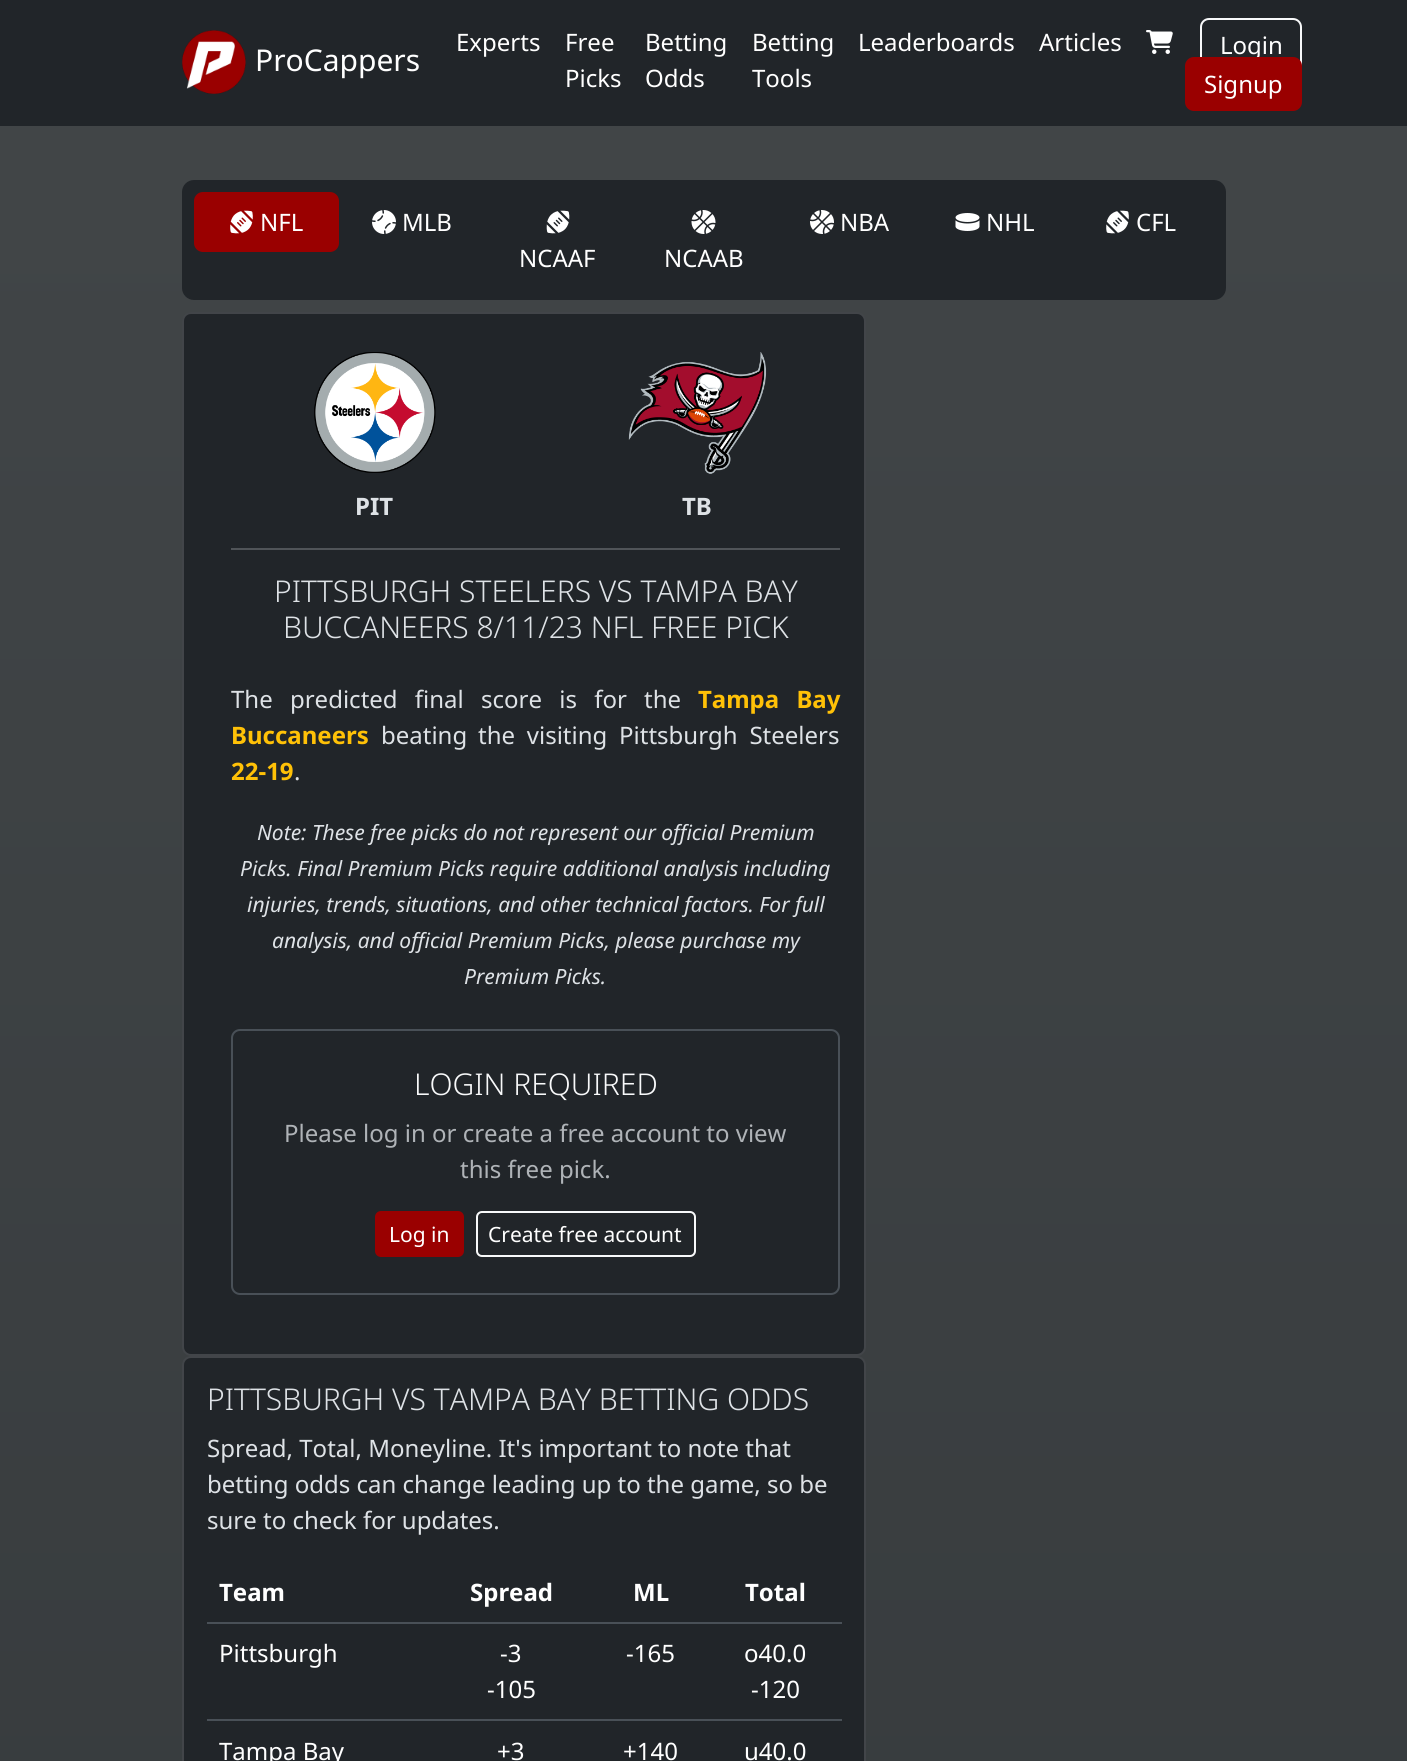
import math
import cairo



def draw_spaced(context, x, y, s, letter, word):
    context.move_to(x, y)
    for ch in s:
        context.show_text(ch)
        context.rel_move_to(letter + word * (ch == ' '), 0)


def rounded_rect(context, x, y, w, h, r):
    context.new_sub_path()
    for i, (u, v) in enumerate([(x + w - r, y + h - r), (x + r, y + h - r), (x + r, y + r), (x + w - r, y + r)]):
        context.arc(u, v, r, i * math.pi / 2, (i + 1) * math.pi / 2)
    context.close_path()


def draw_image(context, path, x, y, w, h):
    context.save()
    context.set_source_surface(cairo.ImageSurface.create_from_png(path), x, y)
    context.rectangle(x, y, w, h)
    context.fill()
    context.restore()


def draw(context):
    context.set_source_rgb(1, 1, 1)
    context.paint()
    gradient = cairo.LinearGradient(703, 0, 704, 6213)
    gradient.add_color_stop_rgba(0, 66 / 255, 70 / 255, 72 / 255, 1)
    gradient.add_color_stop_rgba(1, 32 / 255, 37 / 255, 40 / 255, 1)
    context.set_source(gradient)
    context.rectangle(0, 126, 1407, 1635)
    context.fill()
    context.set_source_rgb(33 / 255, 37 / 255, 41 / 255)
    context.rectangle(0, 0, 1407, 126)
    context.fill()
    draw_image(context, "images/1.png", 182, 30, 64, 64)
    draw_image(context, "images/2.png", 1146, 30, 27, 24)
    rounded_rect(context, 1201, 19, 100, 52, 8)
    context.set_source_rgb(248 / 255, 249 / 255, 250 / 255)
    context.stroke()
    context.set_source_rgb(33 / 255, 37 / 255, 41 / 255)
    rounded_rect(context, 182, 180, 1044, 120, 12)
    context.fill()
    context.set_source_rgb(154 / 255, 0, 0)
    rounded_rect(context, 194, 192, 145, 60, 9)
    context.fill()
    draw_image(context, "images/3.png", 230, 210, 23, 24)
    draw_image(context, "images/4.png", 372, 210, 24, 24)
    draw_image(context, "images/5.png", 810, 210, 24, 24)
    draw_image(context, "images/6.png", 955, 213, 25, 18)
    draw_image(context, "images/7.png", 1106, 210, 23, 24)
    draw_image(context, "images/8.png", 546, 210, 24, 24)
    draw_image(context, "images/9.png", 691, 210, 25, 24)
    context.set_source_rgb(33 / 255, 37 / 255, 41 / 255)
    rounded_rect(context, 182, 312, 684, 1044, 9)
    context.fill()
    rounded_rect(context, 183, 313, 682, 1042, 8)
    context.set_source_rgba(1, 1, 1, 0.15)
    context.stroke()
    draw_image(context, "images/10.png", 314, 352, 122, 121)
    draw_image(context, "images/11.png", 628, 352, 139, 122)
    context.set_source_rgb(80 / 255, 84 / 255, 88 / 255)
    context.rectangle(231, 548, 609, 2)
    context.fill()
    rounded_rect(context, 232, 1030, 607, 264, 8)
    context.set_source_rgb(73 / 255, 80 / 255, 87 / 255)
    context.stroke()
    context.set_source_rgb(154 / 255, 0, 0)
    rounded_rect(context, 376, 1212, 87, 44, 5)
    context.fill_preserve()
    context.stroke()
    rounded_rect(context, 477, 1212, 218, 44, 5)
    context.set_source_rgb(248 / 255, 249 / 255, 250 / 255)
    context.stroke()
    context.set_source_rgb(33 / 255, 37 / 255, 41 / 255)
    rounded_rect(context, 182, 1356, 684, 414, 9)
    context.fill()
    rounded_rect(context, 183, 1357, 682, 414, 8)
    context.set_source_rgba(1, 1, 1, 0.15)
    context.stroke()
    context.set_source_rgb(73 / 255, 80 / 255, 87 / 255)
    context.rectangle(207, 1622, 635, 2)
    context.fill()
    context.rectangle(207, 1719, 635, 2)
    context.fill()
    context.select_font_face("Noto Sans")
    context.set_font_size(30)
    context.set_source_rgb(1, 1, 1)
    context.move_to(255, 71)
    context.show_text("ProCappers")
    context.set_font_size(24)
    context.move_to(456, 51)
    context.show_text("Experts")
    context.move_to(565, 51)
    context.show_text("Free")
    context.move_to(565, 87)
    context.show_text("Picks")
    context.move_to(645, 51)
    context.show_text("Betting")
    context.move_to(645, 87)
    context.show_text("Odds")
    context.move_to(752, 51)
    context.show_text("Betting")
    context.move_to(752, 87)
    context.show_text("Tools")
    context.move_to(858, 51)
    context.show_text("Leaderboards")
    context.move_to(1039, 51)
    context.show_text("Articles")
    context.move_to(1220, 54)
    context.show_text("Login")
    context.set_source_rgb(154 / 255, 0, 0)
    rounded_rect(context, 1186, 58, 115, 52, 8)
    context.fill_preserve()
    context.stroke()
    context.set_source_rgb(1, 1, 1)
    context.move_to(1204, 93)
    context.show_text("Signup")
    context.move_to(260, 231)
    context.show_text("NFL")
    context.move_to(402, 231)
    context.show_text("MLB")
    context.move_to(840, 231)
    context.show_text("NBA")
    context.move_to(986, 231)
    context.show_text("NHL")
    context.move_to(1136, 231)
    context.show_text("CFL")
    context.move_to(519, 267)
    context.show_text("NCAAF")
    context.move_to(664, 267)
    context.show_text("NCAAB")
    context.select_font_face("Noto Sans", cairo.FontSlant.NORMAL, cairo.FontWeight.BOLD)
    context.set_source_rgb(222 / 255, 226 / 255, 230 / 255)
    context.move_to(355, 515)
    context.show_text("PIT")
    context.move_to(682, 515)
    context.show_text("TB")
    context.select_font_face("Noto Sans Light")
    context.set_font_size(30)
    context.move_to(274, 602)
    context.show_text("PITTSBURGH STEELERS VS TAMPA BAY")
    context.move_to(283, 638)
    context.show_text("BUCCANEERS 8/11/23 NFL FREE PICK")
    context.select_font_face("Noto Sans")
    context.set_font_size(24)
    draw_spaced(context, 231, 708, "The predicted final score is for the", 0, 11)
    context.select_font_face("Noto Sans", cairo.FontSlant.NORMAL, cairo.FontWeight.BOLD)
    context.set_source_rgb(1, 193 / 255, 7 / 255)
    draw_spaced(context, 698, 708, "Tampa Bay", 0, 11)
    context.move_to(231, 744)
    context.show_text("Buccaneers")
    context.select_font_face("Noto Sans")
    context.set_source_rgb(222 / 255, 226 / 255, 230 / 255)
    context.move_to(381, 744)
    context.show_text("beating")
    draw_spaced(context, 478, 744, "the visiting Pittsburgh Steelers", 0, 5.5)
    context.select_font_face("Noto Sans", cairo.FontSlant.NORMAL, cairo.FontWeight.BOLD)
    context.set_source_rgb(1, 193 / 255, 7 / 255)
    context.move_to(231, 780)
    context.show_text("22-19")
    context.select_font_face("Noto Sans")
    context.set_source_rgb(222 / 255, 226 / 255, 230 / 255)
    context.move_to(294, 780)
    context.show_text(".")
    context.select_font_face("Noto Sans", cairo.FontSlant.ITALIC)
    context.set_font_size(21)
    context.move_to(257, 840)
    context.show_text("Note: These free picks do not represent our official Premium")
    context.move_to(240, 876)
    context.show_text("Picks. Final Premium Picks require additional analysis including")
    context.move_to(247, 912)
    context.show_text("injuries, trends, situations, and other technical factors. For full")
    context.move_to(272, 948)
    context.show_text("analysis, and official Premium Picks, please purchase my")
    context.move_to(464, 984)
    context.show_text("Premium Picks.")
    context.select_font_face("Noto Sans Light")
    context.set_font_size(30)
    context.set_source_rgb(248 / 255, 249 / 255, 250 / 255)
    context.move_to(414, 1095)
    context.show_text("LOGIN REQUIRED")
    context.select_font_face("Noto Sans")
    context.set_font_size(24)
    context.set_source_rgb(175 / 255, 179 / 255, 183 / 255)
    context.move_to(284, 1142)
    context.show_text("Please log in or create a free account to view")
    context.move_to(460, 1178)
    context.show_text("this free pick.")
    context.set_font_size(21)
    context.set_source_rgb(1, 1, 1)
    context.move_to(389, 1242)
    context.show_text("Log in")
    context.move_to(488, 1242)
    context.show_text("Create free account")
    context.select_font_face("Noto Sans Light")
    context.set_font_size(30)
    context.set_source_rgb(222 / 255, 226 / 255, 230 / 255)
    context.move_to(207, 1410)
    context.show_text("PITTSBURGH VS TAMPA BAY BETTING ODDS")
    context.select_font_face("Noto Sans")
    context.set_font_size(24)
    context.move_to(207, 1457)
    context.show_text("Spread, Total, Moneyline. It's important to note that")
    context.move_to(207, 1493)
    context.show_text("betting odds can change leading up to the game, so be")
    context.move_to(207, 1529)
    context.show_text("sure to check for updates.")
    context.select_font_face("Noto Sans", cairo.FontSlant.NORMAL, cairo.FontWeight.BOLD)
    context.set_source_rgb(1, 1, 1)
    context.move_to(219, 1601)
    context.show_text("Team")
    context.move_to(470, 1601)
    context.show_text("Spread")
    context.move_to(633, 1601)
    context.show_text("ML")
    context.move_to(745, 1601)
    context.show_text("Total")
    context.select_font_face("Noto Sans")
    context.move_to(219, 1662)
    context.show_text("Pittsburgh")
    context.move_to(500, 1662)
    context.show_text("-3")
    context.move_to(487, 1698)
    context.show_text("-105")
    context.move_to(626, 1662)
    context.show_text("-165")
    context.move_to(744, 1662)
    context.show_text("o40.0")
    context.move_to(751, 1698)
    context.show_text("-120")
    context.move_to(219, 1760)
    context.show_text("Tampa Bay")
    context.move_to(497, 1760)
    context.show_text("+3")
    context.move_to(623, 1760)
    context.show_text("+140")
    context.move_to(744, 1760)
    context.show_text("u40.0")


surface = cairo.ImageSurface(cairo.Format.RGB24, 1407, 1761)
context = cairo.Context(surface)
options = cairo.FontOptions()
options.set_hint_metrics(cairo.HintMetrics.OFF)
options.set_hint_style(cairo.HintStyle.NONE)
context.set_font_options(options)
context.set_miter_limit(4)
draw(context)
surface.write_to_png("out.png")
